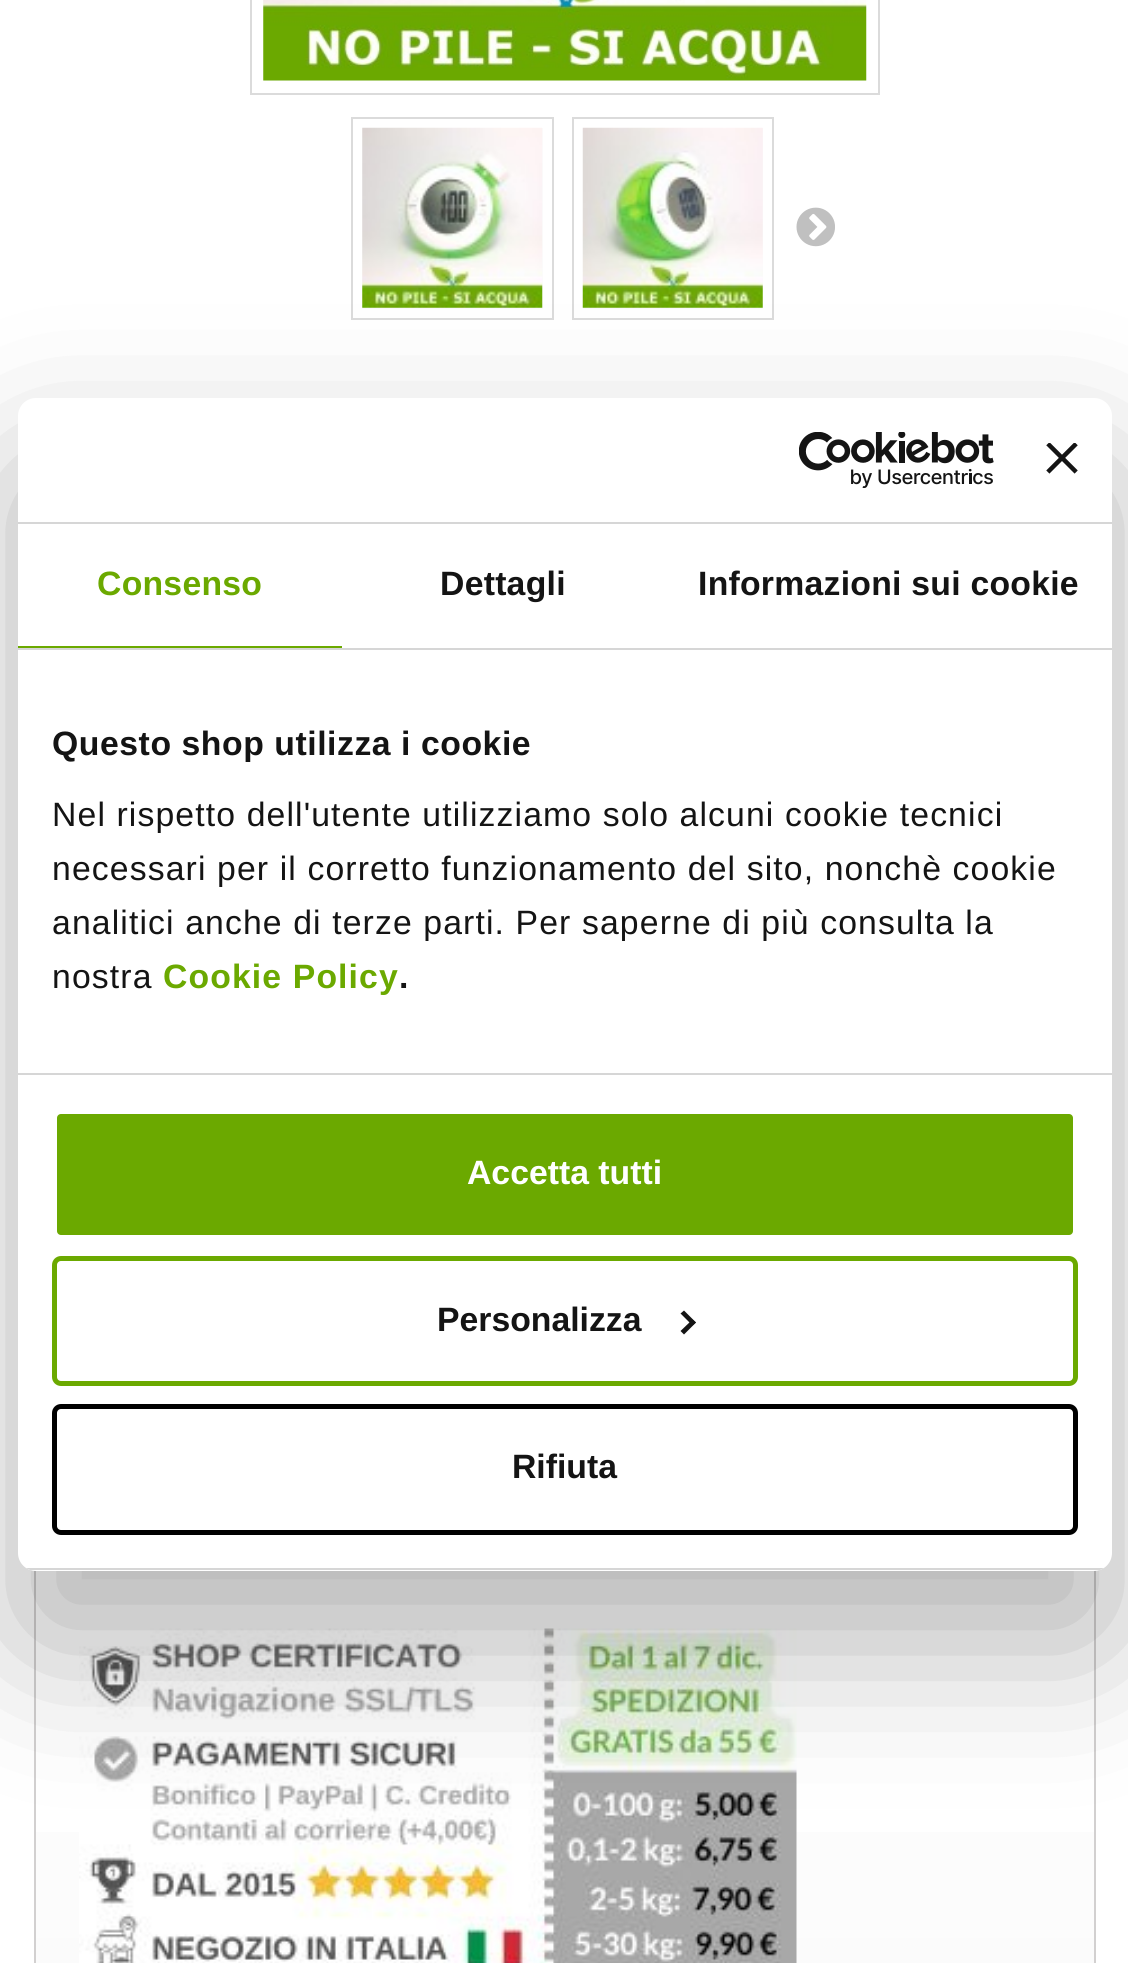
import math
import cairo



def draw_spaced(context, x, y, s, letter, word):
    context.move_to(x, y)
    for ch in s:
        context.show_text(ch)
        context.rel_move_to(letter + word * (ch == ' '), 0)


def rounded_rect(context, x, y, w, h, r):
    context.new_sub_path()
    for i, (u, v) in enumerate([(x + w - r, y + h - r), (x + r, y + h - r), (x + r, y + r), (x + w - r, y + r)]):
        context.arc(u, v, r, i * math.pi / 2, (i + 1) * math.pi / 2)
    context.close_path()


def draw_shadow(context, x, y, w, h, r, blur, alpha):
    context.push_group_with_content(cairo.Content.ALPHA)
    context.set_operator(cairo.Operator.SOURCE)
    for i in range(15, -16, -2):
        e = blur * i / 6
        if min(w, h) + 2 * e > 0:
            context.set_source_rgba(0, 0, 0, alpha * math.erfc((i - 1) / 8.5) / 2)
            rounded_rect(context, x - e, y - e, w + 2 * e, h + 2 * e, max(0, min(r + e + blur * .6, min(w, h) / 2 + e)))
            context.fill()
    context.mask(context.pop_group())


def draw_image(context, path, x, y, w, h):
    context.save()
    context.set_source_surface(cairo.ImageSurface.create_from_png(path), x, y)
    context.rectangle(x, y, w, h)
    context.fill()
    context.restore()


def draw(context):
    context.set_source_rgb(1, 1, 1)
    context.paint()
    context.rectangle(251, -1, 628, 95)
    context.set_source_rgb(219 / 255, 219 / 255, 219 / 255)
    context.stroke()
    context.set_source_rgb(251 / 255, 251 / 255, 251 / 255)
    context.rectangle(263, 0, 603, 81)
    context.fill()
    draw_image(context, "images/1.png", 263, 0, 604, 81)
    context.rectangle(352, 118, 201, 201)
    context.set_source_rgb(219 / 255, 219 / 255, 219 / 255)
    context.stroke()
    context.set_source_rgb(251 / 255, 251 / 255, 251 / 255)
    context.rectangle(362, 128, 181, 181)
    context.fill()
    draw_image(context, "images/2.png", 362, 127, 181, 181)
    context.rectangle(573, 118, 200, 201)
    context.set_source_rgb(219 / 255, 219 / 255, 219 / 255)
    context.stroke()
    context.set_source_rgb(251 / 255, 251 / 255, 251 / 255)
    context.rectangle(583, 128, 180, 181)
    context.fill()
    draw_image(context, "images/3.png", 582, 127, 181, 181)
    draw_image(context, "images/4.png", 796, 207, 39, 40)
    context.set_source_rgb(210 / 255, 208 / 255, 208 / 255)
    context.rectangle(1094, 1570, 2, 393)
    context.fill()
    context.rectangle(34, 1570, 2, 393)
    context.fill()
    gradient = cairo.LinearGradient(565, 1568, 565, 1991)
    gradient.add_color_stop_rgba(0, 1, 1, 1, 1)
    gradient.add_color_stop_rgba(1, 251 / 255, 251 / 255, 251 / 255, 1)
    context.set_source(gradient)
    context.rectangle(36, 1832, 1058, 131)
    context.fill()
    draw_image(context, "images/5.png", 79, 1628, 718, 335)
    context.set_source_rgb(0, 0, 0)
    draw_shadow(context, 18, 470, 1094, 1173, 18, 76.5, 0.3)
    context.set_source_rgb(1, 1, 1)
    rounded_rect(context, 18, 398, 1094, 1173, 18)
    context.fill()
    context.set_source_rgb(214 / 255, 214 / 255, 214 / 255)
    context.rectangle(18, 522, 1094, 2)
    context.fill()
    draw_image(context, "images/6.png", 799, 432, 195, 56)
    draw_image(context, "images/7.png", 1046, 443, 32, 31)
    context.rectangle(18, 648, 1094, 2)
    context.fill()
    context.set_source_rgb(107 / 255, 169 / 255, 0)
    context.rectangle(18, 646, 324, 2)
    context.fill()
    context.set_source_rgb(214 / 255, 214 / 255, 214 / 255)
    context.rectangle(18, 1073, 1094, 2)
    context.fill()
    context.save()
    rounded_rect(context, 18, 398, 1094, 1173, 18)
    context.clip()
    context.rectangle(18, 1568, 1094, 2)
    context.fill()
    context.restore()
    context.set_source_rgb(107 / 255, 169 / 255, 0)
    rounded_rect(context, 54.5, 1111.5, 1021, 126, 6.5)
    context.fill_preserve()
    context.set_source_rgb(1, 1, 1)
    context.set_line_width(5)
    context.stroke()
    rounded_rect(context, 54.5, 1258.5, 1021, 125, 6.5)
    context.set_source_rgb(107 / 255, 169 / 255, 0)
    context.stroke()
    context.set_source_rgb(20 / 255, 20 / 255, 20 / 255)
    context.new_path()
    context.move_to(684, 1310.5)
    context.line_to(696, 1322.5)
    context.line_to(692.5, 1325.5)
    context.line_to(680.5, 1313.5)
    context.close_path()
    context.fill()
    context.new_path()
    context.move_to(692.5, 1319.5)
    context.line_to(696, 1322.5)
    context.line_to(684, 1334.5)
    context.line_to(680.5, 1331)
    context.close_path()
    context.fill()
    rounded_rect(context, 54.5, 1406.5, 1021, 126, 6.5)
    context.set_source_rgb(0, 0, 0)
    context.stroke()
    context.select_font_face("Liberation Sans", cairo.FontSlant.NORMAL, cairo.FontWeight.BOLD)
    context.set_font_size(33.75)
    context.set_source_rgb(107 / 255, 169 / 255, 0)
    draw_spaced(context, 97, 595, "Consenso", 0.25, 0)
    context.set_source_rgb(20 / 255, 20 / 255, 20 / 255)
    draw_spaced(context, 440, 595, "Dettagli", 0.25, 0)
    draw_spaced(context, 698, 595, "Informazioni sui cookie", 0.25, 0)
    draw_spaced(context, 52, 755, "Questo shop utilizza i cookie", 0.55, 0)
    context.select_font_face("Liberation Sans")
    draw_spaced(context, 52, 826, "Nel rispetto dell'utente utilizziamo solo alcuni cookie tecnici", 1.12, 0)
    draw_spaced(context, 52, 880, "necessari per il corretto funzionamento del sito, nonchè cookie", 1.12, 0)
    draw_spaced(context, 52, 934, "analitici anche di terze parti. Per saperne di più consulta la", 1.12, 0)
    draw_spaced(context, 52, 988, "nostra", 1.12, 0)
    context.select_font_face("Liberation Sans", cairo.FontSlant.NORMAL, cairo.FontWeight.BOLD)
    context.set_source_rgb(107 / 255, 169 / 255, 0)
    draw_spaced(context, 163, 988, "Cookie Policy", 1.12, 0)
    context.set_source_rgb(20 / 255, 20 / 255, 20 / 255)
    draw_spaced(context, 399, 988, ".", 1.12, 0)
    context.set_source_rgb(1, 1, 1)
    context.move_to(467, 1184)
    context.show_text("Accetta tutti")
    context.set_source_rgb(20 / 255, 20 / 255, 20 / 255)
    context.move_to(437, 1331)
    context.show_text("Personalizza")
    context.move_to(512, 1478)
    context.show_text("Rifiuta")


surface = cairo.ImageSurface(cairo.Format.RGB24, 1128, 1963)
context = cairo.Context(surface)
options = cairo.FontOptions()
options.set_hint_metrics(cairo.HintMetrics.OFF)
options.set_hint_style(cairo.HintStyle.NONE)
context.set_font_options(options)
context.set_miter_limit(4)
draw(context)
surface.write_to_png("out.png")
